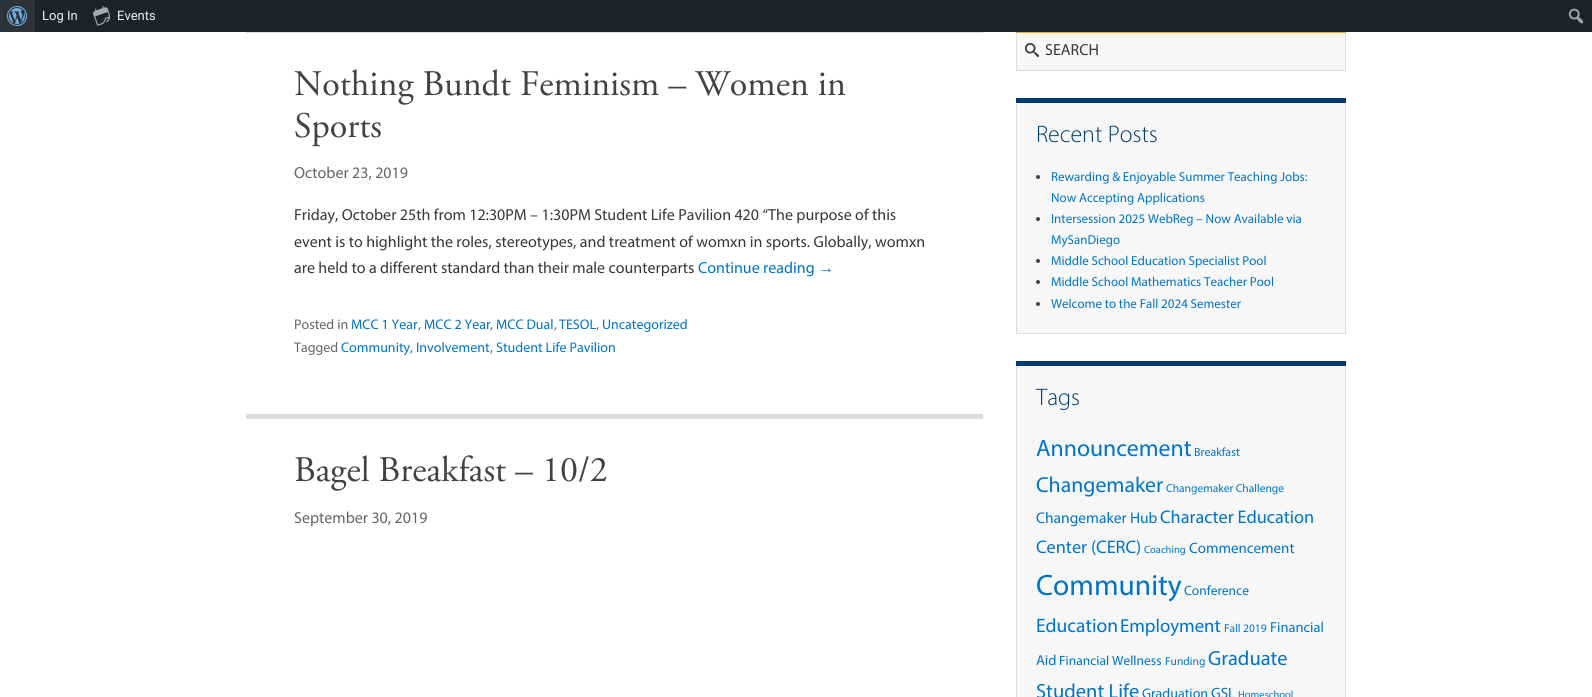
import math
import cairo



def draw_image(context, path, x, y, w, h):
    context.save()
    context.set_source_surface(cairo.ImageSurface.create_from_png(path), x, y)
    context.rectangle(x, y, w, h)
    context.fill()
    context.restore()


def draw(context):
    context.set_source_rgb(1, 1, 1)
    context.paint()
    context.set_source_rgb(247 / 255, 247 / 255, 247 / 255)
    context.rectangle(1017, 33, 328, 37)
    context.fill()
    context.rectangle(1016.5, 29.5, 329, 41)
    context.set_source_rgb(221 / 255, 221 / 255, 221 / 255)
    context.set_line_width(1)
    context.stroke()
    context.set_source_rgb(29 / 255, 35 / 255, 39 / 255)
    context.rectangle(35, 0, 1557, 32)
    context.fill()
    context.set_source_rgb(44 / 255, 51 / 255, 56 / 255)
    context.rectangle(0, 0, 35, 32)
    context.fill()
    draw_image(context, "images/1.png", 7, 6, 20, 20)
    draw_image(context, "images/2.png", 93, 6, 17, 20)
    draw_image(context, "images/3.png", 1568, 8, 16, 16)
    context.set_source_rgb(221 / 255, 221 / 255, 221 / 255)
    context.rectangle(246, 32, 737, 1)
    context.fill()
    context.rectangle(246, 414, 737, 5)
    context.fill()
    context.set_source_rgb(238 / 255, 170 / 255, 43 / 255)
    context.rectangle(1016, 32, 330, 1)
    context.fill()
    draw_image(context, "images/4.png", 1025, 43, 14, 14)
    context.set_source_rgb(247 / 255, 247 / 255, 247 / 255)
    context.rectangle(1017, 103, 328, 230)
    context.fill()
    context.rectangle(1016.5, 99.5, 329, 234)
    context.set_source_rgb(221 / 255, 221 / 255, 221 / 255)
    context.stroke()
    context.set_source_rgb(0, 59 / 255, 112 / 255)
    context.rectangle(1016, 98, 330, 5)
    context.fill()
    context.set_source_rgb(66 / 255, 66 / 255, 66 / 255)
    context.arc(1038, 177, 2, 0, 2 * math.pi)
    context.fill()
    context.arc(1038, 219, 2, 0, 2 * math.pi)
    context.fill()
    context.arc(1038, 261, 2, 0, 2 * math.pi)
    context.fill()
    context.arc(1038, 282, 2, 0, 2 * math.pi)
    context.fill()
    context.arc(1038, 304, 2, 0, 2 * math.pi)
    context.fill()
    context.set_source_rgb(247 / 255, 247 / 255, 247 / 255)
    context.rectangle(1017, 366, 328, 331)
    context.fill()
    context.rectangle(1016.5, 362.5, 329, 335)
    context.set_source_rgb(221 / 255, 221 / 255, 221 / 255)
    context.stroke()
    context.set_source_rgb(0, 59 / 255, 112 / 255)
    context.rectangle(1016, 361, 330, 5)
    context.fill()
    context.select_font_face("Roboto")
    context.set_font_size(13)
    context.set_source_rgb(240 / 255, 240 / 255, 241 / 255)
    context.move_to(42, 20)
    context.show_text("Log In")
    context.move_to(117, 20)
    context.show_text("Events")
    context.select_font_face("Adobe Garamond")
    context.set_font_size(36)
    context.set_source_rgb(66 / 255, 66 / 255, 66 / 255)
    context.move_to(294, 95)
    context.show_text("Nothing Bundt Feminism – Women in")
    context.move_to(294, 137)
    context.show_text("Sports")
    context.select_font_face("Myriad")
    context.set_font_size(16)
    context.set_source_rgb(100 / 255, 100 / 255, 105 / 255)
    context.move_to(294, 178)
    context.show_text("October 23, 2019")
    context.set_source_rgb(55 / 255, 55 / 255, 55 / 255)
    context.move_to(294, 220)
    context.show_text("Friday, October 25th from 12:30PM – 1:30PM Student Life Pavilion 420 “The purpose of this")
    context.move_to(294, 247)
    context.show_text("event is to highlight the roles, stereotypes, and treatment of womxn in sports. Globally, womxn")
    context.move_to(294, 273)
    context.show_text("are held to a different standard than their male counterparts")
    context.set_source_rgb(0, 116 / 255, 200 / 255)
    context.move_to(698, 273)
    context.show_text("Continue reading")
    context.select_font_face("Liberation Sans")
    context.move_to(818, 273)
    context.show_text("→")
    context.select_font_face("Myriad")
    context.set_font_size(14)
    context.set_source_rgb(100 / 255, 100 / 255, 105 / 255)
    context.move_to(294, 329)
    context.show_text("Posted in")
    context.set_source_rgb(0, 116 / 255, 200 / 255)
    context.move_to(351, 329)
    context.show_text("MCC 1 Year")
    context.set_source_rgb(100 / 255, 100 / 255, 105 / 255)
    context.move_to(418, 329)
    context.show_text(",")
    context.set_source_rgb(0, 116 / 255, 200 / 255)
    context.move_to(424, 329)
    context.show_text("MCC 2 Year")
    context.set_source_rgb(100 / 255, 100 / 255, 105 / 255)
    context.move_to(490, 329)
    context.show_text(",")
    context.set_source_rgb(0, 116 / 255, 200 / 255)
    context.move_to(496, 329)
    context.show_text("MCC Dual")
    context.set_source_rgb(100 / 255, 100 / 255, 105 / 255)
    context.move_to(554, 329)
    context.show_text(",")
    context.set_source_rgb(0, 116 / 255, 200 / 255)
    context.move_to(559, 329)
    context.show_text("TESOL")
    context.set_source_rgb(100 / 255, 100 / 255, 105 / 255)
    context.move_to(596, 329)
    context.show_text(",")
    context.set_source_rgb(0, 116 / 255, 200 / 255)
    context.move_to(602, 329)
    context.show_text("Uncategorized")
    context.set_source_rgb(100 / 255, 100 / 255, 105 / 255)
    context.move_to(294, 352)
    context.show_text("Tagged")
    context.set_source_rgb(0, 116 / 255, 200 / 255)
    context.move_to(341, 352)
    context.show_text("Community")
    context.set_source_rgb(100 / 255, 100 / 255, 105 / 255)
    context.move_to(410, 352)
    context.show_text(",")
    context.set_source_rgb(0, 116 / 255, 200 / 255)
    context.move_to(416, 352)
    context.show_text("Involvement")
    context.set_source_rgb(100 / 255, 100 / 255, 105 / 255)
    context.move_to(490, 352)
    context.show_text(",")
    context.set_source_rgb(0, 116 / 255, 200 / 255)
    context.move_to(496, 352)
    context.show_text("Student Life Pavilion")
    context.select_font_face("Adobe Garamond")
    context.set_font_size(36)
    context.set_source_rgb(66 / 255, 66 / 255, 66 / 255)
    context.move_to(294, 481)
    context.show_text("Bagel Breakfast – 10/2")
    context.select_font_face("Myriad")
    context.set_font_size(16)
    context.set_source_rgb(100 / 255, 100 / 255, 105 / 255)
    context.move_to(294, 523)
    context.show_text("September 30, 2019")
    context.set_source_rgb(55 / 255, 55 / 255, 55 / 255)
    context.move_to(1045, 55)
    context.show_text("SEARCH")
    context.select_font_face("Myriad Light")
    context.set_font_size(24)
    context.set_source_rgb(0, 59 / 255, 112 / 255)
    context.move_to(1036, 142)
    context.show_text("Recent Posts")
    context.select_font_face("Myriad")
    context.set_font_size(13)
    context.set_source_rgb(0, 116 / 255, 200 / 255)
    context.move_to(1051, 181)
    context.show_text("Rewarding & Enjoyable Summer Teaching Jobs:")
    context.move_to(1051, 202)
    context.show_text("Now Accepting Applications")
    context.move_to(1051, 223)
    context.show_text("Intersession 2025 WebReg – Now Available via")
    context.move_to(1051, 244)
    context.show_text("MySanDiego")
    context.move_to(1051, 265)
    context.show_text("Middle School Education Specialist Pool")
    context.move_to(1051, 286)
    context.show_text("Middle School Mathematics Teacher Pool")
    context.move_to(1051, 308)
    context.show_text("Welcome to the Fall 2024 Semester")
    context.select_font_face("Myriad Light")
    context.set_font_size(24)
    context.set_source_rgb(0, 59 / 255, 112 / 255)
    context.move_to(1036, 405)
    context.show_text("Tags")
    context.select_font_face("Myriad")
    context.set_font_size(23.75)
    context.set_source_rgb(0, 116 / 255, 200 / 255)
    context.move_to(1036, 456)
    context.show_text("Announcement")
    context.set_font_size(12)
    context.move_to(1194, 456)
    context.show_text("Breakfast")
    context.set_font_size(21.75)
    context.move_to(1036, 492)
    context.show_text("Changemaker")
    context.set_font_size(11.5)
    context.move_to(1166, 492)
    context.show_text("Changemaker Challenge")
    context.set_font_size(15.5)
    context.move_to(1036, 523)
    context.show_text("Changemaker Hub")
    context.set_font_size(18.25)
    context.move_to(1160, 523)
    context.show_text("Character Education")
    context.move_to(1036, 553)
    context.show_text("Center (CERC)")
    context.set_font_size(10.5)
    context.move_to(1144, 553)
    context.show_text("Coaching")
    context.set_font_size(15)
    context.move_to(1189, 553)
    context.show_text("Commencement")
    context.set_font_size(29.5)
    context.move_to(1036, 595)
    context.show_text("Community")
    context.set_font_size(13.5)
    context.move_to(1184, 595)
    context.show_text("Conference")
    context.set_font_size(19.5)
    context.move_to(1036, 632)
    context.show_text("Education")
    context.set_font_size(18.75)
    context.move_to(1120, 632)
    context.show_text("Employment")
    context.set_font_size(11.5)
    context.move_to(1224, 632)
    context.show_text("Fall 2019")
    context.set_font_size(14.5)
    context.move_to(1270, 632)
    context.show_text("Financial")
    context.move_to(1036, 665)
    context.show_text("Aid")
    context.set_font_size(13.5)
    context.move_to(1059, 665)
    context.show_text("Financial Wellness")
    context.set_font_size(11.5)
    context.move_to(1165, 665)
    context.show_text("Funding")
    context.set_font_size(20.5)
    context.move_to(1208, 665)
    context.show_text("Graduate")
    context.move_to(1036, 698)
    context.show_text("Student Life")
    context.set_font_size(14)
    context.move_to(1142, 698)
    context.show_text("Graduation")
    context.set_font_size(15)
    context.move_to(1211, 698)
    context.show_text("GSL")
    context.set_font_size(10.5)
    context.move_to(1238, 698)
    context.show_text("Homeschool")


surface = cairo.ImageSurface(cairo.Format.RGB24, 1592, 697)
context = cairo.Context(surface)
options = cairo.FontOptions()
options.set_hint_metrics(cairo.HintMetrics.OFF)
options.set_hint_style(cairo.HintStyle.NONE)
context.set_font_options(options)
context.set_miter_limit(4)
draw(context)
surface.write_to_png("out.png")
